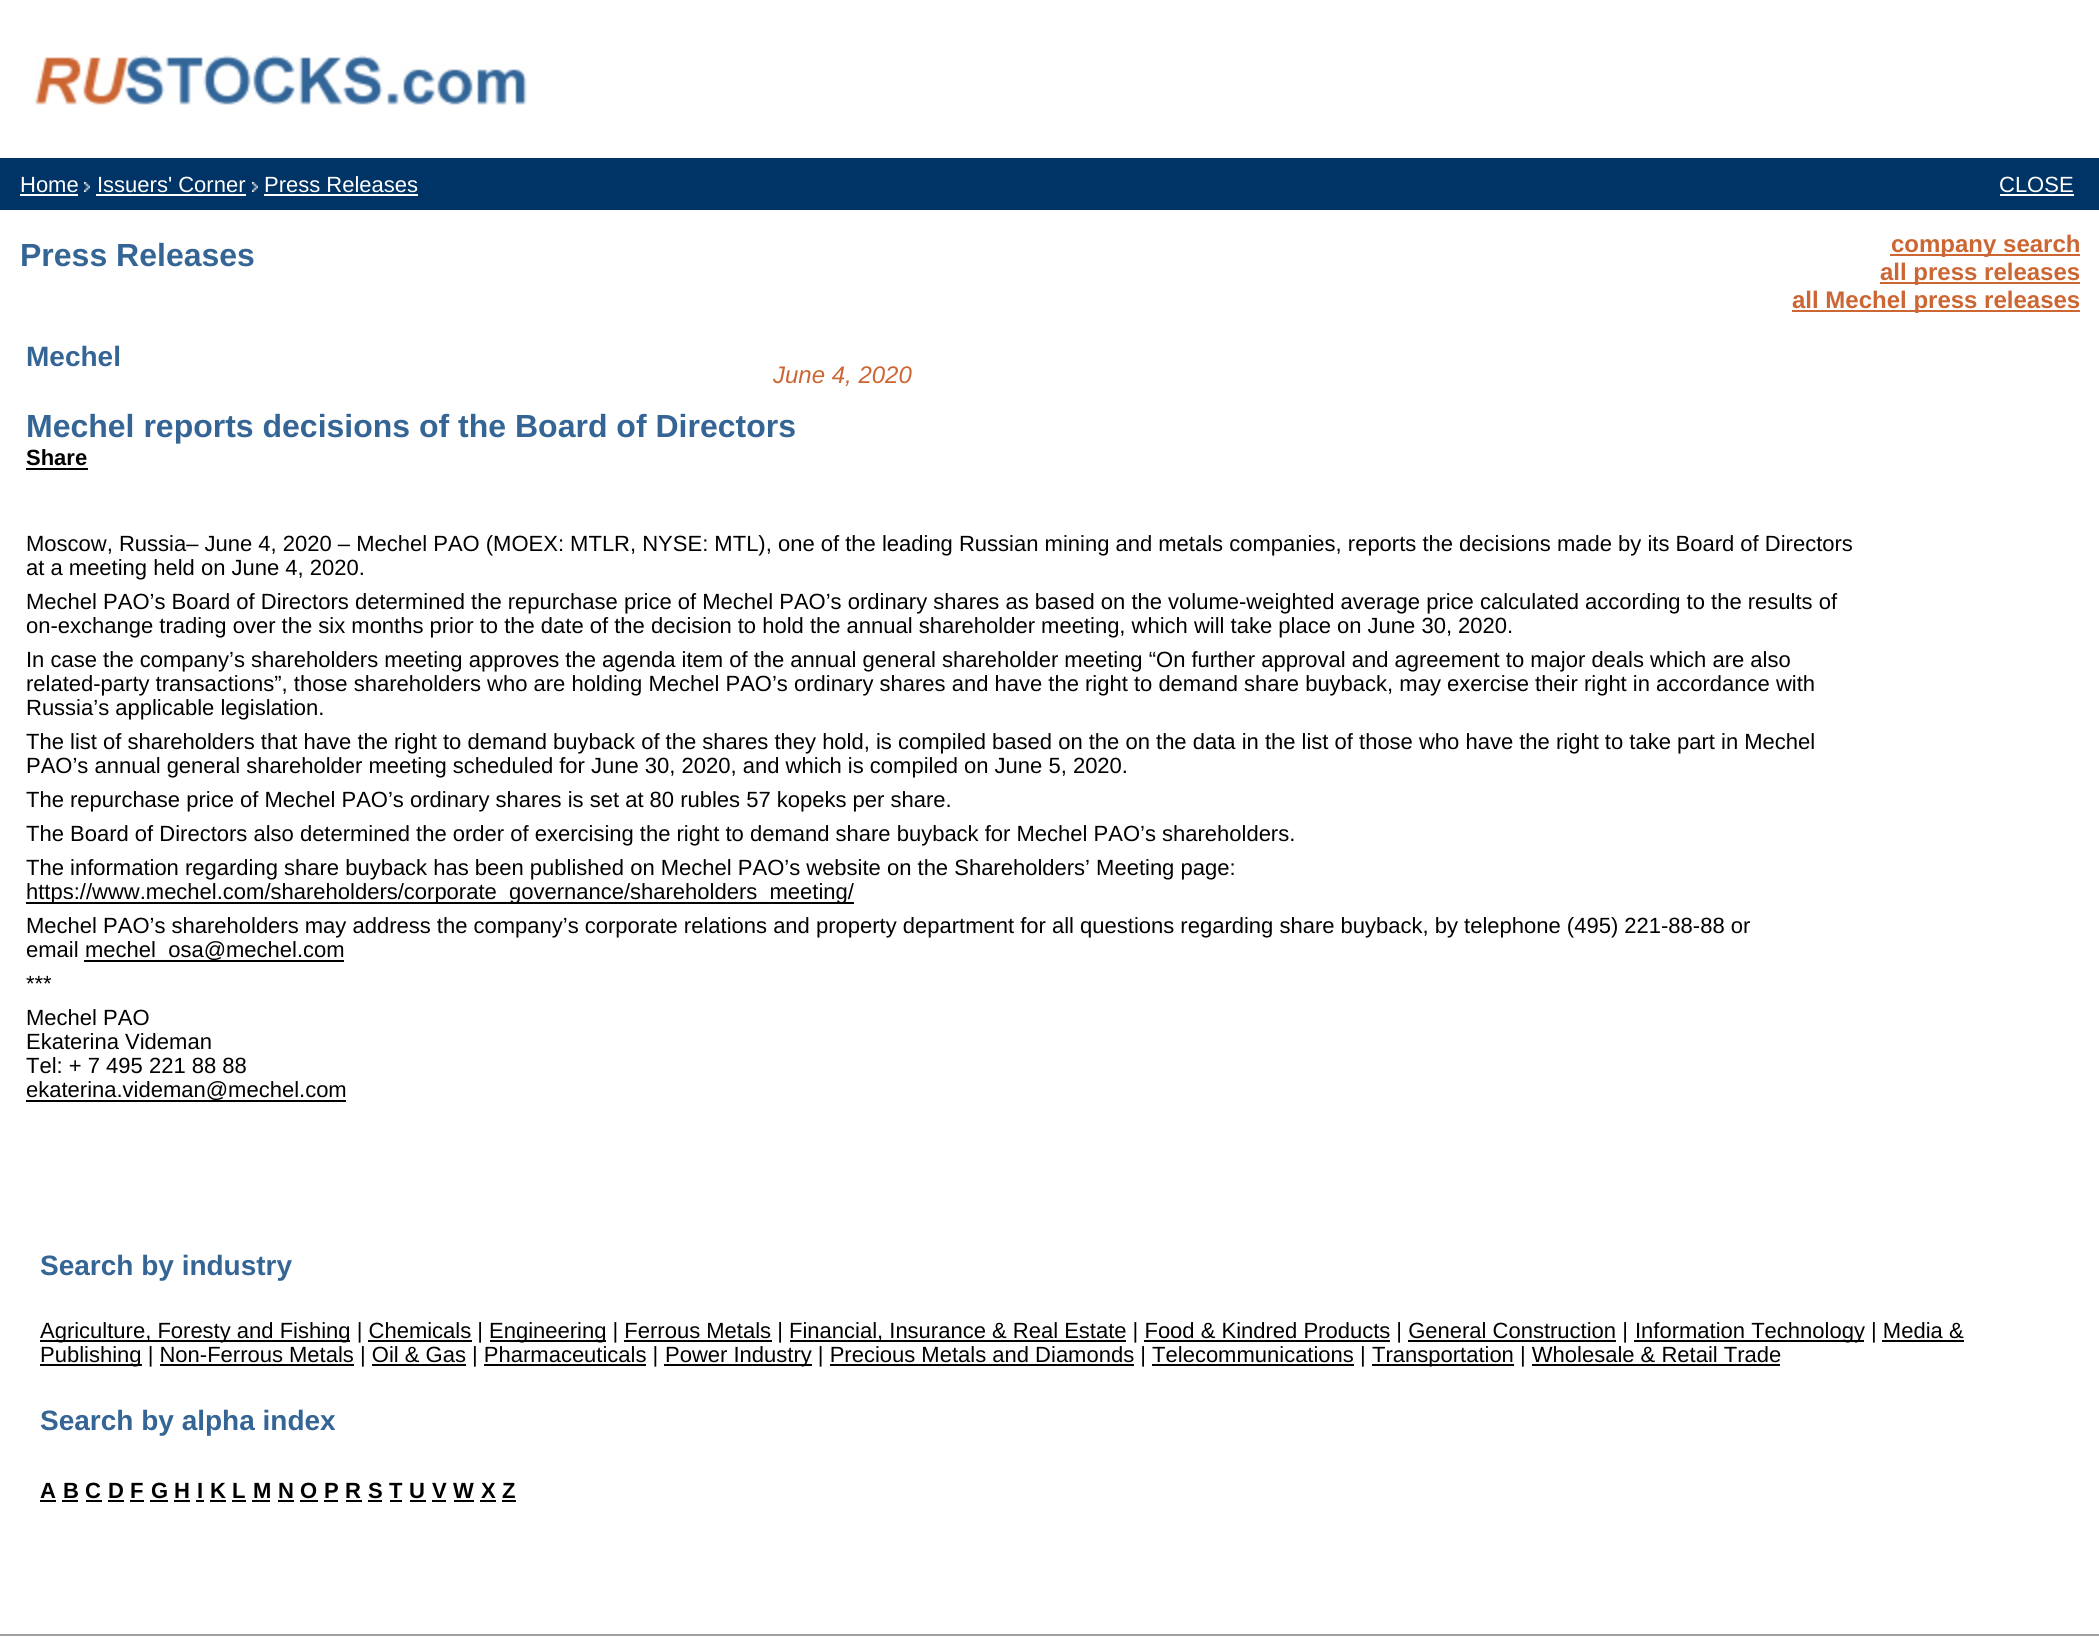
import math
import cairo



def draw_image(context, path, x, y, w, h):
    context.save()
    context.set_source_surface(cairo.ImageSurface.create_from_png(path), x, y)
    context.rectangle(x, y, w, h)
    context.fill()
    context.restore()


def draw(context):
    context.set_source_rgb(1, 1, 1)
    context.paint()
    draw_image(context, "images/1.png", 35, 55, 492, 50)
    context.set_source_rgb(0, 51 / 255, 102 / 255)
    context.rectangle(0, 158, 2099, 52)
    context.fill()
    context.set_source_rgb(1, 1, 1)
    context.rectangle(20, 194, 58, 2)
    context.fill()
    draw_image(context, "images/2.png", 84, 182, 6, 10)
    context.rectangle(96, 194, 150, 2)
    context.fill()
    draw_image(context, "images/2.png", 252, 182, 6, 10)
    context.rectangle(264, 194, 154, 2)
    context.fill()
    context.rectangle(2000, 194, 74, 2)
    context.fill()
    context.set_source_rgb(204 / 255, 102 / 255, 51 / 255)
    context.rectangle(1890, 254, 190, 2)
    context.fill()
    context.rectangle(1880, 282, 200, 2)
    context.fill()
    context.rectangle(1792, 310, 288, 2)
    context.fill()
    context.set_source_rgb(0, 0, 0)
    context.rectangle(26, 468, 62, 2)
    context.fill()
    context.rectangle(26, 902, 828, 2)
    context.fill()
    context.rectangle(84, 960, 260, 2)
    context.fill()
    context.rectangle(26, 1100, 320, 2)
    context.fill()
    context.rectangle(40, 1340, 310, 2)
    context.fill()
    context.rectangle(490, 1340, 116, 2)
    context.fill()
    context.rectangle(790, 1340, 336, 2)
    context.fill()
    context.rectangle(1634, 1340, 230, 2)
    context.fill()
    context.rectangle(368, 1340, 104, 2)
    context.fill()
    context.rectangle(624, 1340, 148, 2)
    context.fill()
    context.rectangle(1144, 1340, 246, 2)
    context.fill()
    context.rectangle(1408, 1340, 208, 2)
    context.fill()
    context.rectangle(1882, 1340, 82, 2)
    context.fill()
    context.rectangle(40, 1364, 102, 2)
    context.fill()
    context.rectangle(664, 1364, 148, 2)
    context.fill()
    context.rectangle(1372, 1364, 142, 2)
    context.fill()
    context.rectangle(160, 1364, 194, 2)
    context.fill()
    context.rectangle(372, 1364, 94, 2)
    context.fill()
    context.rectangle(484, 1364, 162, 2)
    context.fill()
    context.rectangle(830, 1364, 304, 2)
    context.fill()
    context.rectangle(1152, 1364, 202, 2)
    context.fill()
    context.rectangle(1532, 1364, 248, 2)
    context.fill()
    context.rectangle(40, 1500, 16, 2)
    context.fill()
    context.rectangle(62, 1500, 16, 2)
    context.fill()
    context.rectangle(86, 1500, 16, 2)
    context.fill()
    context.rectangle(108, 1500, 16, 2)
    context.fill()
    context.rectangle(130, 1500, 14, 2)
    context.fill()
    context.rectangle(150, 1500, 18, 2)
    context.fill()
    context.rectangle(174, 1500, 16, 2)
    context.fill()
    context.rectangle(196, 1500, 8, 2)
    context.fill()
    context.rectangle(210, 1500, 16, 2)
    context.fill()
    context.rectangle(232, 1500, 14, 2)
    context.fill()
    context.rectangle(252, 1500, 18, 2)
    context.fill()
    context.rectangle(278, 1500, 16, 2)
    context.fill()
    context.rectangle(300, 1500, 18, 2)
    context.fill()
    context.rectangle(324, 1500, 14, 2)
    context.fill()
    context.rectangle(346, 1500, 16, 2)
    context.fill()
    context.rectangle(368, 1500, 14, 2)
    context.fill()
    context.rectangle(390, 1500, 12, 2)
    context.fill()
    context.rectangle(410, 1500, 16, 2)
    context.fill()
    context.rectangle(432, 1500, 14, 2)
    context.fill()
    context.rectangle(454, 1500, 20, 2)
    context.fill()
    context.rectangle(480, 1500, 16, 2)
    context.fill()
    context.rectangle(502, 1500, 14, 2)
    context.fill()
    context.set_source_rgb(159 / 255, 159 / 255, 159 / 255)
    context.rectangle(0, 1634, 2099, 2)
    context.fill()
    context.select_font_face("Liberation Sans")
    context.set_font_size(22)
    context.set_source_rgb(1, 1, 1)
    context.move_to(20, 192)
    context.show_text("Home")
    context.move_to(97, 192)
    context.show_text("Issuers' Corner")
    context.move_to(264, 192)
    context.show_text("Press Releases")
    context.move_to(1999, 192)
    context.show_text("CLOSE")
    context.select_font_face("Liberation Sans", cairo.FontSlant.NORMAL, cairo.FontWeight.BOLD)
    context.set_font_size(32)
    context.set_source_rgb(53 / 255, 101 / 255, 149 / 255)
    context.move_to(20, 266)
    context.show_text("Press Releases")
    context.set_font_size(24)
    context.set_source_rgb(204 / 255, 102 / 255, 51 / 255)
    context.move_to(1891, 252)
    context.show_text("company search")
    context.move_to(1880, 280)
    context.show_text("all press releases")
    context.move_to(1792, 308)
    context.show_text("all Mechel press releases")
    context.set_font_size(28)
    context.set_source_rgb(53 / 255, 101 / 255, 149 / 255)
    context.move_to(26, 366)
    context.show_text("Mechel")
    context.select_font_face("Liberation Sans", cairo.FontSlant.ITALIC)
    context.set_font_size(24)
    context.set_source_rgb(204 / 255, 102 / 255, 51 / 255)
    context.move_to(773, 383)
    context.show_text("June 4, 2020")
    context.select_font_face("Liberation Sans", cairo.FontSlant.NORMAL, cairo.FontWeight.BOLD)
    context.set_font_size(32)
    context.set_source_rgb(53 / 255, 101 / 255, 149 / 255)
    context.move_to(26, 437)
    context.show_text("Mechel reports decisions of the Board of Directors")
    context.set_font_size(22)
    context.set_source_rgb(0, 0, 0)
    context.move_to(26, 465)
    context.show_text("Share")
    context.select_font_face("Liberation Sans")
    context.move_to(26, 551)
    context.show_text("Moscow, Russia– June 4, 2020 – Mechel PAO (MOEX: MTLR, NYSE: MTL), one of the leading Russian mining and metals companies, reports the decisions made by its Board of Directors")
    context.move_to(26, 575)
    context.show_text("at a meeting held on June 4, 2020.")
    context.move_to(26, 609)
    context.show_text("Mechel PAO’s Board of Directors determined the repurchase price of Mechel PAO’s ordinary shares as based on the volume-weighted average price calculated according to the results of")
    context.move_to(26, 633)
    context.show_text("on-exchange trading over the six months prior to the date of the decision to hold the annual shareholder meeting, which will take place on June 30, 2020.")
    context.move_to(26, 667)
    context.show_text("In case the company’s shareholders meeting approves the agenda item of the annual general shareholder meeting “On further approval and agreement to major deals which are also")
    context.move_to(26, 691)
    context.show_text("related-party transactions”, those shareholders who are holding Mechel PAO’s ordinary shares and have the right to demand share buyback, may exercise their right in accordance with")
    context.move_to(26, 715)
    context.show_text("Russia’s applicable legislation.")
    context.move_to(26, 749)
    context.show_text("The list of shareholders that have the right to demand buyback of the shares they hold, is compiled based on the on the data in the list of those who have the right to take part in Mechel")
    context.move_to(26, 773)
    context.show_text("PAO’s annual general shareholder meeting scheduled for June 30, 2020, and which is compiled on June 5, 2020.")
    context.move_to(26, 807)
    context.show_text("The repurchase price of Mechel PAO’s ordinary shares is set at 80 rubles 57 kopeks per share.")
    context.move_to(26, 841)
    context.show_text("The Board of Directors also determined the order of exercising the right to demand share buyback for Mechel PAO’s shareholders.")
    context.move_to(26, 875)
    context.show_text("The information regarding share buyback has been published on Mechel PAO’s website on the Shareholders’ Meeting page:")
    context.move_to(26, 899)
    context.show_text("https://www.mechel.com/shareholders/corporate_governance/shareholders_meeting/")
    context.move_to(26, 933)
    context.show_text("Mechel PAO’s shareholders may address the company’s corporate relations and property department for all questions regarding share buyback, by telephone (495) 221-88-88 or")
    context.move_to(26, 957)
    context.show_text("email")
    context.move_to(85, 957)
    context.show_text("mechel_osa@mechel.com")
    context.move_to(26, 991)
    context.show_text("***")
    context.move_to(26, 1025)
    context.show_text("Mechel PAO")
    context.move_to(26, 1049)
    context.show_text("Ekaterina Videman")
    context.move_to(26, 1073)
    context.show_text("Tel: + 7 495 221 88 88")
    context.move_to(26, 1097)
    context.show_text("ekaterina.videman@mechel.com")
    context.select_font_face("Liberation Sans", cairo.FontSlant.NORMAL, cairo.FontWeight.BOLD)
    context.set_font_size(28)
    context.set_source_rgb(53 / 255, 101 / 255, 149 / 255)
    context.move_to(40, 1275)
    context.show_text("Search by industry")
    context.select_font_face("Liberation Sans")
    context.set_font_size(22)
    context.set_source_rgb(0, 0, 0)
    context.move_to(40, 1338)
    context.show_text("Agriculture, Foresty and Fishing | Chemicals |")
    context.move_to(489, 1338)
    context.show_text("Engineering | Ferrous Metals |")
    context.move_to(789, 1338)
    context.show_text("Financial, Insurance & Real Estate | Food & Kindred Products | General Construction |")
    context.move_to(1635, 1338)
    context.show_text("Information Technology | Media &")
    context.move_to(40, 1362)
    context.show_text("Publishing | Non-Ferrous Metals | Oil & Gas | Pharmaceuticals |")
    context.move_to(665, 1362)
    context.show_text("Power Industry | Precious Metals and Diamonds | Telecommunications |")
    context.move_to(1372, 1362)
    context.show_text("Transportation | Wholesale & Retail Trade")
    context.select_font_face("Liberation Sans", cairo.FontSlant.NORMAL, cairo.FontWeight.BOLD)
    context.set_font_size(28)
    context.set_source_rgb(53 / 255, 101 / 255, 149 / 255)
    context.move_to(40, 1430)
    context.show_text("Search by alpha index")
    context.set_font_size(22)
    context.set_source_rgb(0, 0, 0)
    context.move_to(40, 1498)
    context.show_text("A")
    context.move_to(63, 1498)
    context.show_text("B")
    context.move_to(85, 1498)
    context.show_text("C")
    context.move_to(108, 1498)
    context.show_text("D")
    context.move_to(130, 1498)
    context.show_text("F")
    context.move_to(151, 1498)
    context.show_text("G")
    context.move_to(174, 1498)
    context.show_text("H")
    context.move_to(197, 1498)
    context.show_text("I")
    context.move_to(210, 1498)
    context.show_text("K")
    context.move_to(232, 1498)
    context.show_text("L")
    context.move_to(253, 1498)
    context.show_text("M")
    context.move_to(278, 1498)
    context.show_text("N")
    context.move_to(300, 1498)
    context.show_text("O")
    context.move_to(324, 1498)
    context.show_text("P")
    context.move_to(345, 1498)
    context.show_text("R")
    context.move_to(368, 1498)
    context.show_text("S")
    context.move_to(389, 1498)
    context.show_text("T")
    context.move_to(409, 1498)
    context.show_text("U")
    context.move_to(432, 1498)
    context.show_text("V")
    context.move_to(453, 1498)
    context.show_text("W")
    context.move_to(481, 1498)
    context.show_text("X")
    context.move_to(502, 1498)
    context.show_text("Z")


surface = cairo.ImageSurface(cairo.Format.RGB24, 2099, 1637)
context = cairo.Context(surface)
options = cairo.FontOptions()
options.set_hint_metrics(cairo.HintMetrics.OFF)
options.set_hint_style(cairo.HintStyle.NONE)
context.set_font_options(options)
context.set_miter_limit(4)
draw(context)
surface.write_to_png("out.png")
